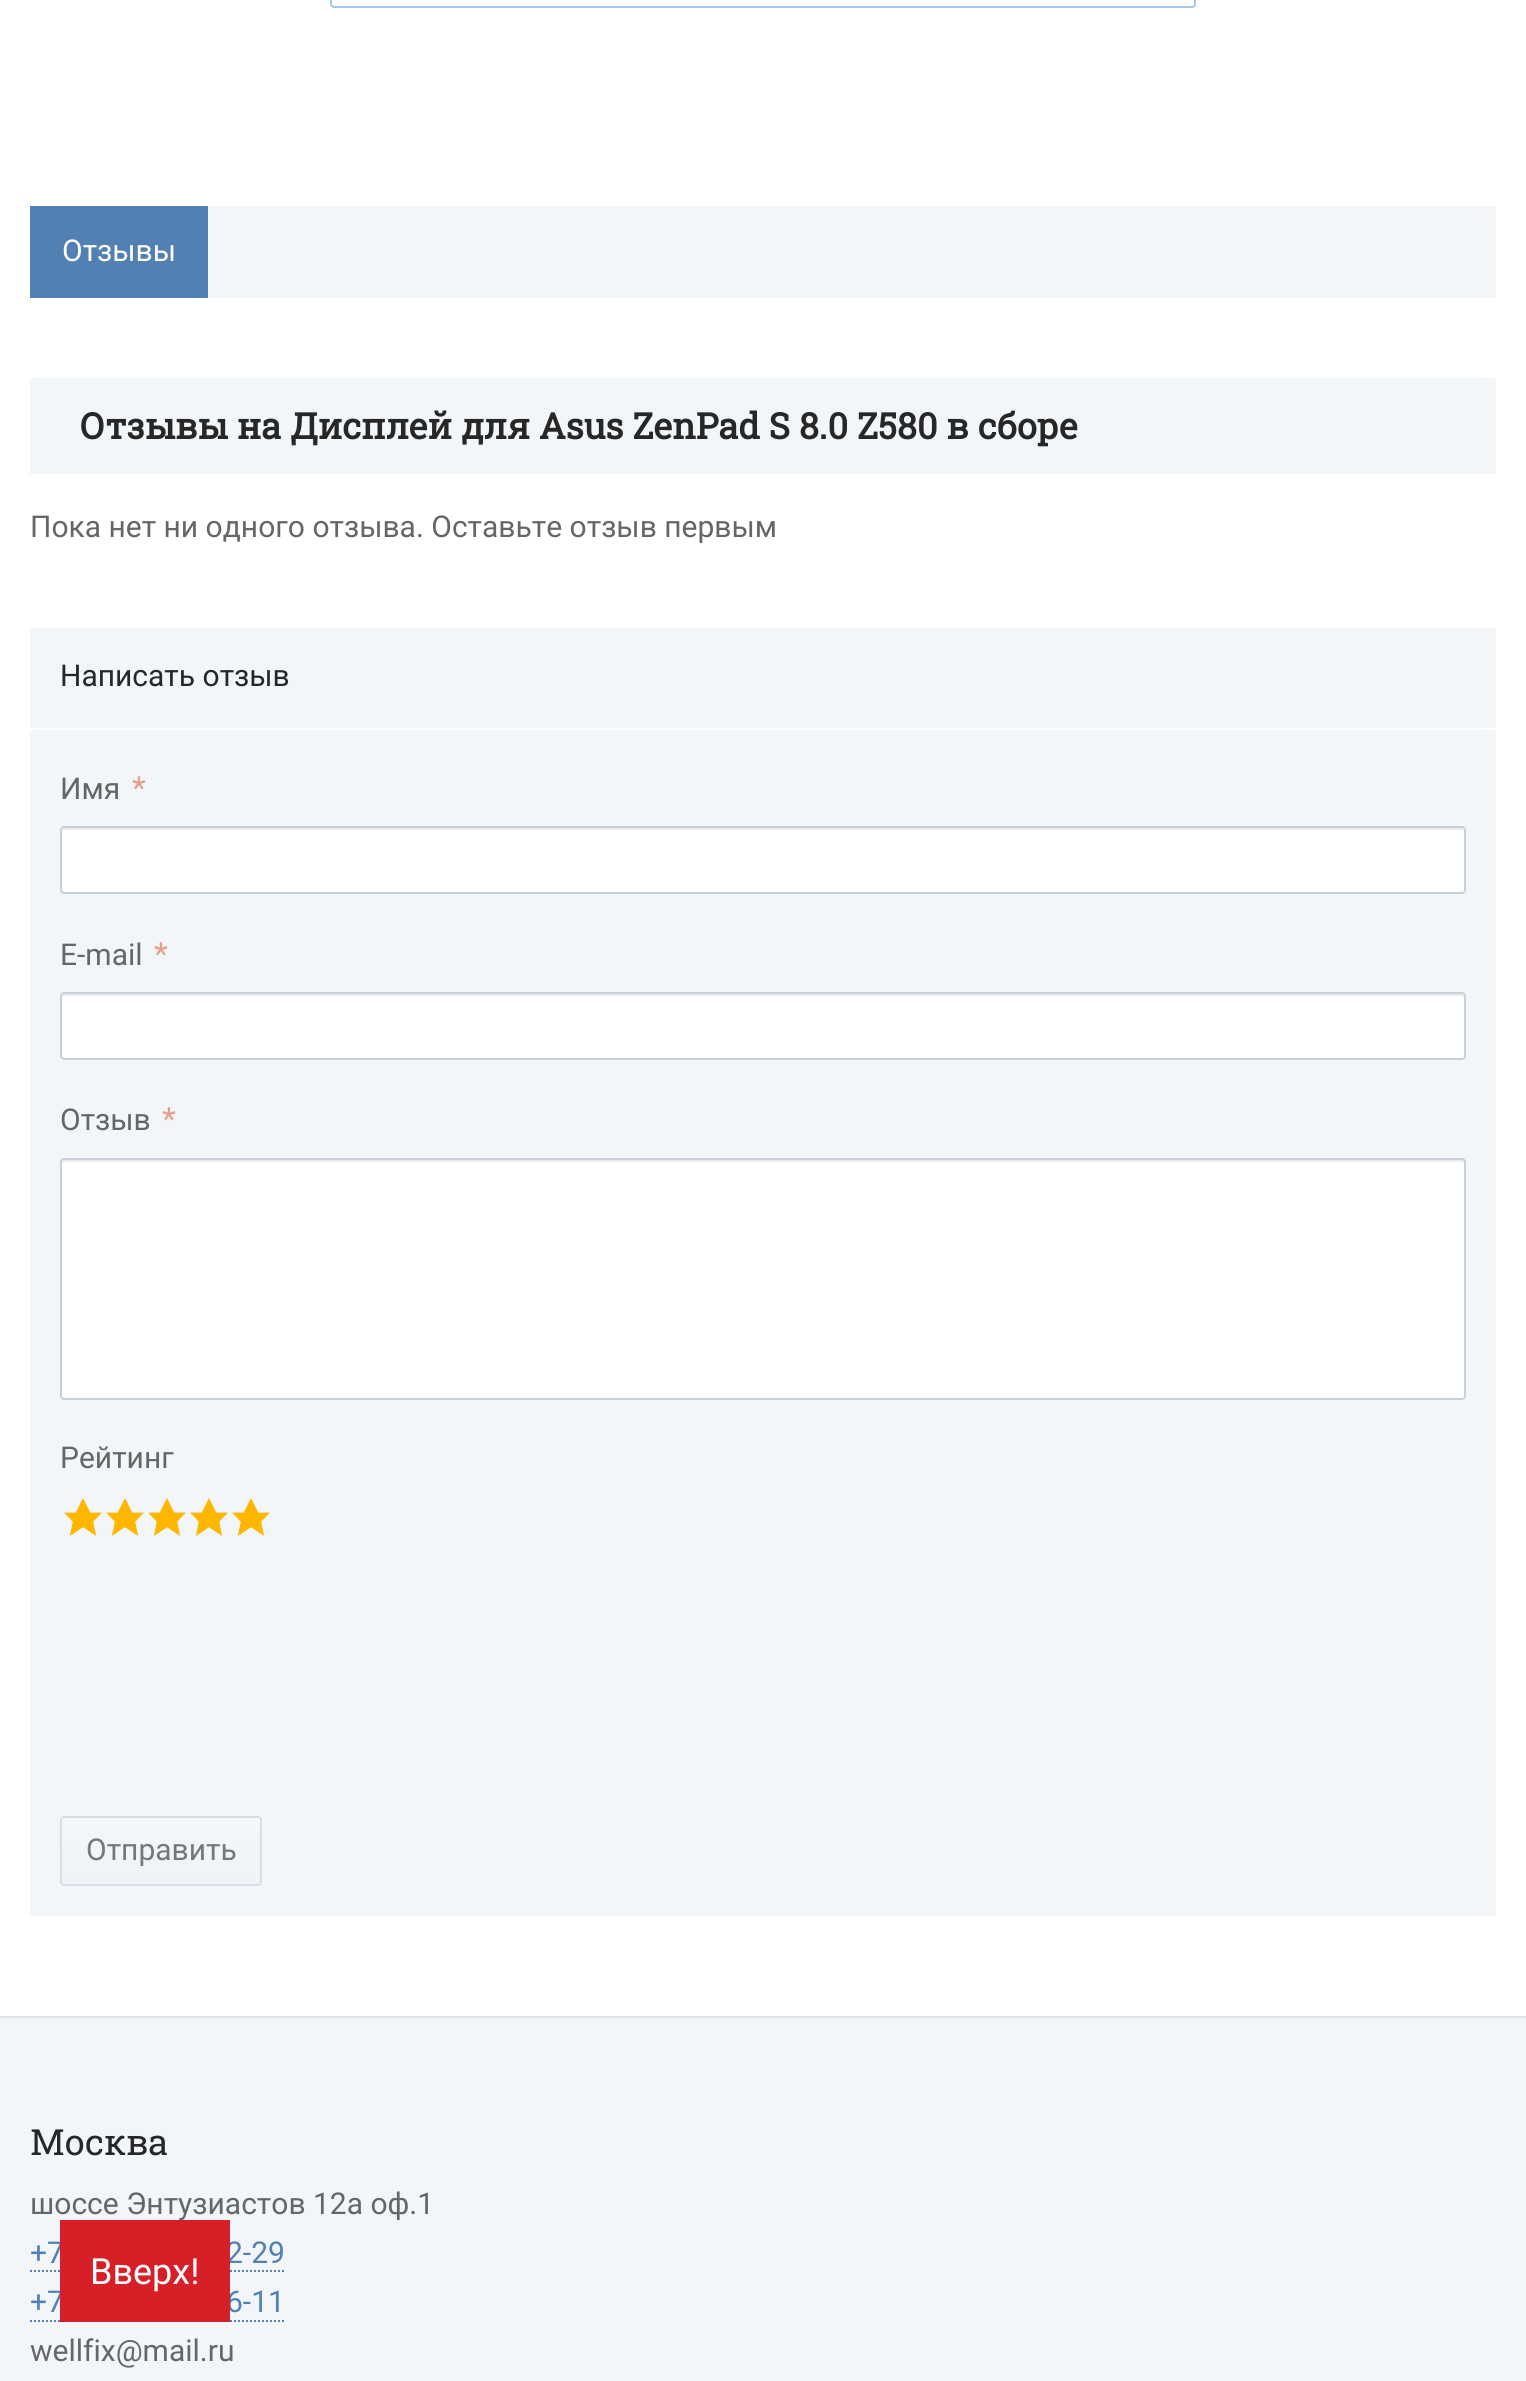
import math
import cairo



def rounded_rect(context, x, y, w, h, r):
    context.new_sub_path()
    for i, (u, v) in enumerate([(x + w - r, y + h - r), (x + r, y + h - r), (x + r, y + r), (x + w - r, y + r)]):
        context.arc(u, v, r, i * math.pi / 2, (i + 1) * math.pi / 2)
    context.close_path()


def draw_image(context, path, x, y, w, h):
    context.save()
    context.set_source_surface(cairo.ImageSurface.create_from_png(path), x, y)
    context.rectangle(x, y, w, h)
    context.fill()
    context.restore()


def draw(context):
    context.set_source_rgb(1, 1, 1)
    context.paint()
    rounded_rect(context, 331, -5, 864, 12, 3)
    context.set_source_rgb(164 / 255, 198 / 255, 232 / 255)
    context.stroke()
    context.set_source_rgb(242 / 255, 246 / 255, 249 / 255)
    context.rectangle(208, 206, 1288, 92)
    context.fill()
    context.set_source_rgb(82 / 255, 128 / 255, 178 / 255)
    context.rectangle(30, 206, 178, 92)
    context.fill()
    context.set_source_rgb(242 / 255, 246 / 255, 249 / 255)
    context.rectangle(30, 378, 1466, 96)
    context.fill()
    context.rectangle(30, 628, 1466, 100)
    context.fill()
    context.rectangle(30, 730, 1466, 1186)
    context.fill()
    context.set_source_rgb(1, 1, 1)
    rounded_rect(context, 60, 826, 1406, 68, 4)
    context.fill()
    context.set_source_rgb(236 / 255, 236 / 255, 236 / 255)
    context.new_path()
    context.move_to(64, 830)
    context.line_to(1462, 830)
    context.curve_to(1463, 830, 1464, 831, 1464, 832)
    context.curve_to(1464, 830, 1464, 828, 1462, 828)
    context.line_to(64, 828)
    context.curve_to(62, 828, 62, 830, 62, 832)
    context.curve_to(62, 831, 63, 830, 64, 830)
    context.close_path()
    context.fill()
    rounded_rect(context, 61, 827, 1404, 66, 3)
    context.set_source_rgb(200 / 255, 207 / 255, 217 / 255)
    context.stroke()
    context.set_source_rgb(1, 1, 1)
    rounded_rect(context, 60, 992, 1406, 68, 4)
    context.fill()
    context.set_source_rgb(236 / 255, 236 / 255, 236 / 255)
    context.new_path()
    context.move_to(64, 996)
    context.line_to(1462, 996)
    context.curve_to(1463, 996, 1464, 997, 1464, 998)
    context.curve_to(1464, 996, 1464, 994, 1462, 994)
    context.line_to(64, 994)
    context.curve_to(62, 994, 62, 996, 62, 998)
    context.curve_to(62, 997, 63, 996, 64, 996)
    context.close_path()
    context.fill()
    rounded_rect(context, 61, 993, 1404, 66, 3)
    context.set_source_rgb(200 / 255, 207 / 255, 217 / 255)
    context.stroke()
    context.set_source_rgb(1, 1, 1)
    rounded_rect(context, 60, 1158, 1406, 242, 4)
    context.fill()
    context.set_source_rgb(236 / 255, 236 / 255, 236 / 255)
    context.new_path()
    context.move_to(64, 1162)
    context.line_to(1462, 1162)
    context.curve_to(1463, 1162, 1464, 1163, 1464, 1164)
    context.curve_to(1464, 1162, 1464, 1160, 1462, 1160)
    context.line_to(64, 1160)
    context.curve_to(62, 1160, 62, 1162, 62, 1164)
    context.curve_to(62, 1163, 63, 1162, 64, 1162)
    context.close_path()
    context.fill()
    rounded_rect(context, 61, 1159, 1404, 240, 3)
    context.set_source_rgb(200 / 255, 207 / 255, 217 / 255)
    context.stroke()
    draw_image(context, "images/1.png", 64, 1498, 38, 38)
    draw_image(context, "images/1.png", 106, 1498, 38, 38)
    draw_image(context, "images/1.png", 148, 1498, 38, 38)
    draw_image(context, "images/1.png", 190, 1498, 38, 38)
    draw_image(context, "images/1.png", 232, 1498, 38, 38)
    context.save()
    rounded_rect(context, 60, 1816, 202, 70, 4)
    context.clip()
    gradient = cairo.LinearGradient(161, 1818, 161, 1884)
    gradient.add_color_stop_rgba(0, 244 / 255, 247 / 255, 250 / 255, 1)
    gradient.add_color_stop_rgba(1, 238 / 255, 243 / 255, 247 / 255, 1)
    context.set_source(gradient)
    context.rectangle(60, 1818, 202, 66)
    context.fill()
    context.restore()
    rounded_rect(context, 61, 1817, 200, 68, 3)
    context.set_source_rgb(215 / 255, 221 / 255, 228 / 255)
    context.stroke()
    context.set_source_rgb(242 / 255, 246 / 255, 249 / 255)
    context.rectangle(0, 2018, 1526, 363)
    context.fill()
    context.set_source_rgb(223 / 255, 228 / 255, 235 / 255)
    context.rectangle(0, 2016, 1526, 2)
    context.fill()
    context.new_path()
    context.move_to(30, 2271)
    context.line_to(284, 2271)
    context.set_source_rgb(82 / 255, 128 / 255, 178 / 255)
    context.set_dash([2, 2])
    context.stroke()
    context.new_path()
    context.move_to(30, 2321)
    context.line_to(284, 2321)
    context.stroke()
    context.select_font_face("Roboto")
    context.set_font_size(30)
    context.set_source_rgb(1, 1, 1)
    context.move_to(62, 261)
    context.show_text("Отзывы")
    context.select_font_face("Roboto Slab", cairo.FontSlant.NORMAL, cairo.FontWeight.BOLD)
    context.set_font_size(36)
    context.set_source_rgb(39 / 255, 39 / 255, 39 / 255)
    context.move_to(80, 439)
    context.show_text("Отзывы на Дисплей для Asus ZenPad S 8.0 Z580 в сборе")
    context.select_font_face("Roboto")
    context.set_font_size(30)
    context.set_source_rgb(102 / 255, 102 / 255, 102 / 255)
    context.move_to(30, 537)
    context.show_text("Пока нет ни одного отзыва. Оставьте отзыв первым")
    context.set_source_rgb(39 / 255, 39 / 255, 39 / 255)
    context.move_to(60, 686)
    context.show_text("Написать отзыв")
    context.set_source_rgb(102 / 255, 102 / 255, 102 / 255)
    context.move_to(60, 799)
    context.show_text("Имя")
    context.set_font_size(32)
    context.set_source_rgb(232 / 255, 155 / 255, 136 / 255)
    context.move_to(132, 799)
    context.show_text("*")
    context.set_font_size(30)
    context.set_source_rgb(102 / 255, 102 / 255, 102 / 255)
    context.move_to(60, 965)
    context.show_text("E-mail")
    context.set_font_size(32)
    context.set_source_rgb(232 / 255, 155 / 255, 136 / 255)
    context.move_to(154, 965)
    context.show_text("*")
    context.set_font_size(30)
    context.set_source_rgb(102 / 255, 102 / 255, 102 / 255)
    context.move_to(60, 1130)
    context.show_text("Отзыв")
    context.set_font_size(32)
    context.set_source_rgb(232 / 255, 155 / 255, 136 / 255)
    context.move_to(162, 1130)
    context.show_text("*")
    context.set_font_size(30)
    context.set_source_rgb(102 / 255, 102 / 255, 102 / 255)
    context.move_to(60, 1468)
    context.show_text("Рейтинг")
    context.set_source_rgb(118 / 255, 119 / 255, 120 / 255)
    context.move_to(86, 1860)
    context.show_text("Отправить")
    context.select_font_face("Roboto Slab")
    context.set_font_size(36)
    context.set_source_rgb(39 / 255, 39 / 255, 39 / 255)
    context.move_to(30, 2155)
    context.show_text("Москва")
    context.select_font_face("Roboto")
    context.set_font_size(30)
    context.set_source_rgb(102 / 255, 102 / 255, 102 / 255)
    context.move_to(30, 2214)
    context.show_text("шоссе Энтузиастов 12а оф.1")
    context.set_source_rgb(82 / 255, 128 / 255, 178 / 255)
    context.move_to(30, 2263)
    context.show_text("+7")
    context.move_to(226, 2263)
    context.show_text("2-29")
    context.move_to(30, 2312)
    context.show_text("+7")
    context.move_to(226, 2312)
    context.show_text("6-11")
    context.set_source_rgb(102 / 255, 102 / 255, 102 / 255)
    context.move_to(30, 2361)
    context.show_text("wellfix@mail.ru")
    context.set_source_rgb(214 / 255, 31 / 255, 38 / 255)
    context.rectangle(60, 2220, 170, 102)
    context.fill()
    context.set_font_size(36)
    context.set_source_rgb(1, 1, 1)
    context.move_to(90, 2284)
    context.show_text("Вверх!")


surface = cairo.ImageSurface(cairo.Format.RGB24, 1526, 2381)
context = cairo.Context(surface)
options = cairo.FontOptions()
options.set_hint_metrics(cairo.HintMetrics.OFF)
options.set_hint_style(cairo.HintStyle.NONE)
context.set_font_options(options)
context.set_miter_limit(4)
draw(context)
surface.write_to_png("out.png")
